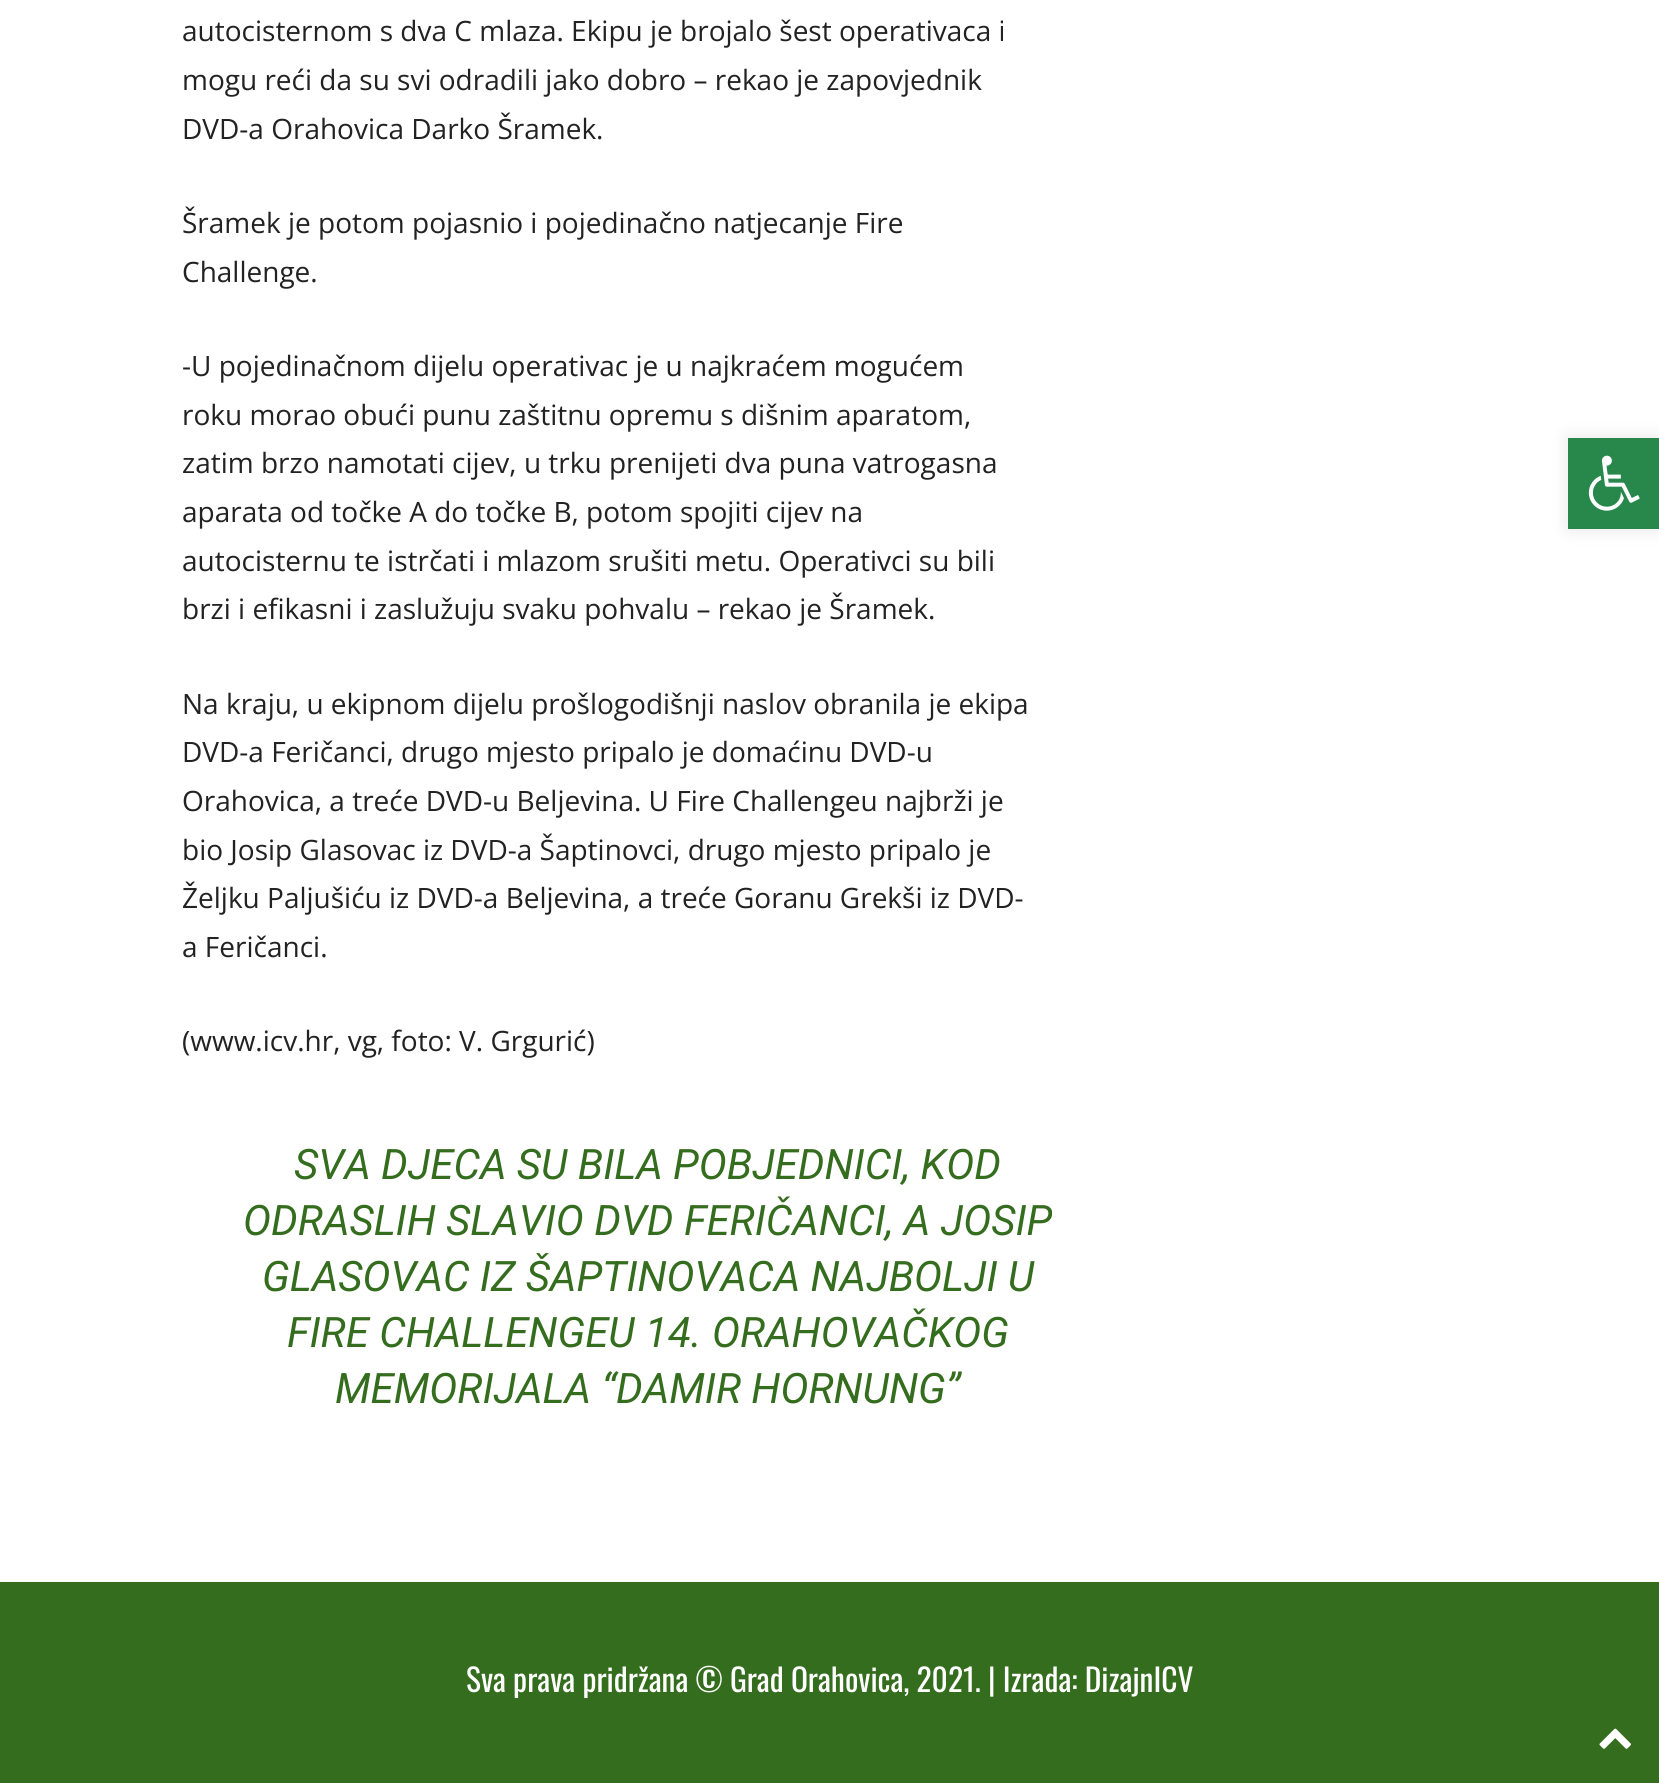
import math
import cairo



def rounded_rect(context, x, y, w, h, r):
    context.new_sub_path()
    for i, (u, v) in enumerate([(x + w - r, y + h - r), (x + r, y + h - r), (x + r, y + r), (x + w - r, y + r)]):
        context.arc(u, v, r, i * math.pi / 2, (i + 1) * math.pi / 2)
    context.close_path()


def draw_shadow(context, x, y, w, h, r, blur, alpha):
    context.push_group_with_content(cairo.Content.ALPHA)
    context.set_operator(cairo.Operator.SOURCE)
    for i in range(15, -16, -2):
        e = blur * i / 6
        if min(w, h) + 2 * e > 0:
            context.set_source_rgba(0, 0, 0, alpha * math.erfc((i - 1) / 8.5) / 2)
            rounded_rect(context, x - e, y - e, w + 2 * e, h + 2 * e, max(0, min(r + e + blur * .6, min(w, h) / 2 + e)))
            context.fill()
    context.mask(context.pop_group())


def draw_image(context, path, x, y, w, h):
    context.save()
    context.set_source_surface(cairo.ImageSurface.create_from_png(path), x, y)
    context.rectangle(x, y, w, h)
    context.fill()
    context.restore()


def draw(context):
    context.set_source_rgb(1, 1, 1)
    context.paint()
    context.set_source_rgb(53 / 255, 109 / 255, 30 / 255)
    context.rectangle(0, 1582, 1659, 201)
    context.fill()
    context.set_source_rgb(0, 0, 0)
    draw_shadow(context, 1568, 438, 91, 91, 0, 9, 0.1)
    context.set_source_rgb(40 / 255, 135 / 255, 75 / 255)
    context.rectangle(1568, 438, 91, 91)
    context.fill()
    draw_image(context, "images/1.png", 1588, 455, 52, 56)
    draw_image(context, "images/2.png", 1599, 1728, 32, 21)
    context.select_font_face("Open Sans")
    context.set_font_size(28)
    context.set_source_rgb(34 / 255, 34 / 255, 34 / 255)
    context.move_to(182, 41)
    context.show_text("autocisternom s dva C mlaza. Ekipu je brojalo šest operativaca i")
    context.move_to(182, 90)
    context.show_text("mogu reći da su svi odradili jako dobro – rekao je zapovjednik")
    context.move_to(182, 139)
    context.show_text("DVD-a Orahovica Darko Šramek.")
    context.move_to(182, 233)
    context.show_text("Šramek je potom pojasnio i pojedinačno natjecanje Fire")
    context.move_to(182, 282)
    context.show_text("Challenge.")
    context.move_to(182, 376)
    context.show_text("-U pojedinačnom dijelu operativac je u najkraćem mogućem")
    context.move_to(182, 425)
    context.show_text("roku morao obući punu zaštitnu opremu s dišnim aparatom,")
    context.move_to(182, 473)
    context.show_text("zatim brzo namotati cijev, u trku prenijeti dva puna vatrogasna")
    context.move_to(182, 522)
    context.show_text("aparata od točke A do točke B, potom spojiti cijev na")
    context.move_to(182, 571)
    context.show_text("autocisternu te istrčati i mlazom srušiti metu. Operativci su bili")
    context.move_to(182, 619)
    context.show_text("brzi i efikasni i zaslužuju svaku pohvalu – rekao je Šramek.")
    context.move_to(182, 714)
    context.show_text("Na kraju, u ekipnom dijelu prošlogodišnji naslov obranila je ekipa")
    context.move_to(182, 762)
    context.show_text("DVD-a Feričanci, drugo mjesto pripalo je domaćinu DVD-u")
    context.move_to(182, 811)
    context.show_text("Orahovica, a treće DVD-u Beljevina. U Fire Challengeu najbrži je")
    context.move_to(182, 860)
    context.show_text("bio Josip Glasovac iz DVD-a Šaptinovci, drugo mjesto pripalo je")
    context.move_to(182, 908)
    context.show_text("Željku Paljušiću iz DVD-a Beljevina, a treće Goranu Grekši iz DVD-")
    context.move_to(182, 957)
    context.show_text("a Feričanci.")
    context.move_to(182, 1051)
    context.show_text("(www.icv.hr, vg, foto: V. Grgurić)")
    context.select_font_face("Roboto", cairo.FontSlant.ITALIC)
    context.set_font_size(42)
    context.set_source_rgb(53 / 255, 109 / 255, 30 / 255)
    context.move_to(294, 1179)
    context.show_text("SVA DJECA SU BILA POBJEDNICI, KOD")
    context.move_to(243, 1235)
    context.show_text("ODRASLIH SLAVIO DVD FERIČANCI, A JOSIP")
    context.move_to(262, 1291)
    context.show_text("GLASOVAC IZ ŠAPTINOVACA NAJBOLJI U")
    context.move_to(287, 1347)
    context.show_text("FIRE CHALLENGEU 14. ORAHOVAČKOG")
    context.move_to(335, 1403)
    context.show_text("MEMORIJALA “DAMIR HORNUNG”")
    context.select_font_face("Oswald")
    context.set_font_size(31.5)
    context.set_source_rgb(1, 1, 1)
    context.move_to(466, 1692)
    context.show_text("Sva prava pridržana © Grad Orahovica, 2021. | Izrada: DizajnICV")


surface = cairo.ImageSurface(cairo.Format.RGB24, 1659, 1783)
context = cairo.Context(surface)
options = cairo.FontOptions()
options.set_hint_metrics(cairo.HintMetrics.OFF)
options.set_hint_style(cairo.HintStyle.NONE)
context.set_font_options(options)
context.set_miter_limit(4)
draw(context)
surface.write_to_png("out.png")
